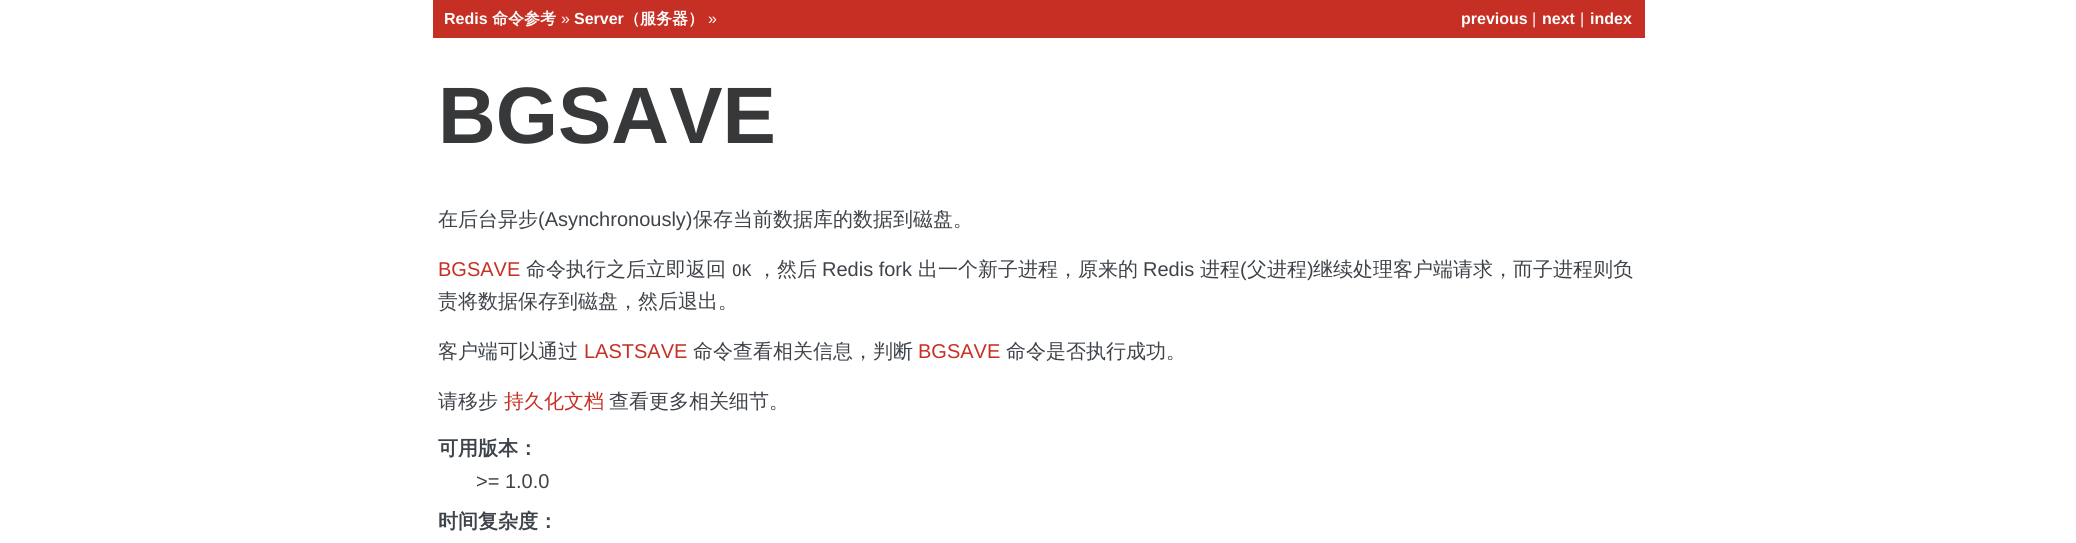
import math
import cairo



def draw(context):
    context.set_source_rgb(1, 1, 1)
    context.paint()
    context.set_source_rgb(197 / 255, 47 / 255, 36 / 255)
    context.rectangle(433, 0, 1212, 38)
    context.fill()
    context.select_font_face("Liberation Sans", cairo.FontSlant.NORMAL, cairo.FontWeight.BOLD)
    context.set_font_size(16)
    context.set_source_rgb(1, 1, 1)
    context.move_to(444, 24)
    context.show_text("Redis")
    context.select_font_face("WenQuanYi Zen Hei", cairo.FontSlant.NORMAL, cairo.FontWeight.BOLD)
    context.move_to(492, 24)
    context.show_text("命令参考")
    context.select_font_face("Liberation Sans")
    context.move_to(561, 24)
    context.show_text("»")
    context.select_font_face("Liberation Sans", cairo.FontSlant.NORMAL, cairo.FontWeight.BOLD)
    context.move_to(574, 24)
    context.show_text("Server")
    context.select_font_face("WenQuanYi Zen Hei", cairo.FontSlant.NORMAL, cairo.FontWeight.BOLD)
    context.move_to(624, 24)
    context.show_text("（服务器）")
    context.select_font_face("Liberation Sans")
    context.move_to(708, 24)
    context.show_text("»")
    context.select_font_face("Liberation Sans", cairo.FontSlant.NORMAL, cairo.FontWeight.BOLD)
    context.move_to(1461, 24)
    context.show_text("previous")
    context.select_font_face("Liberation Sans")
    context.move_to(1532, 24)
    context.show_text("|")
    context.select_font_face("Liberation Sans", cairo.FontSlant.NORMAL, cairo.FontWeight.BOLD)
    context.move_to(1542, 24)
    context.show_text("next")
    context.select_font_face("Liberation Sans")
    context.move_to(1580, 24)
    context.show_text("|")
    context.select_font_face("Liberation Sans", cairo.FontSlant.NORMAL, cairo.FontWeight.BOLD)
    context.move_to(1590, 24)
    context.show_text("index")
    context.set_font_size(80)
    context.set_source_rgb(55 / 255, 56 / 255, 57 / 255)
    context.move_to(438, 143)
    context.show_text("BGSAVE")
    context.select_font_face("WenQuanYi Zen Hei Medium")
    context.set_font_size(20)
    context.set_source_rgb(62 / 255, 67 / 255, 73 / 255)
    context.move_to(438, 226)
    context.show_text("在后台异步")
    context.select_font_face("Liberation Sans")
    context.move_to(538, 226)
    context.show_text("(Asynchronously)")
    context.select_font_face("WenQuanYi Zen Hei Medium")
    context.move_to(693, 226)
    context.show_text("保存当前数据库的数据到磁盘。")
    context.select_font_face("Liberation Sans")
    context.set_source_rgb(197 / 255, 47 / 255, 36 / 255)
    context.move_to(438, 276)
    context.show_text("BGSAVE")
    context.select_font_face("WenQuanYi Zen Hei Medium")
    context.set_source_rgb(62 / 255, 67 / 255, 73 / 255)
    context.move_to(526, 276)
    context.show_text("命令执行之后立即返回")
    context.select_font_face("DejaVu Sans Mono")
    context.set_font_size(16)
    context.move_to(732, 276)
    context.show_text("OK")
    context.select_font_face("WenQuanYi Zen Hei Medium")
    context.set_font_size(20)
    context.move_to(757, 276)
    context.show_text("，然后")
    context.select_font_face("Liberation Sans")
    context.move_to(822, 276)
    context.show_text("Redis fork")
    context.select_font_face("WenQuanYi Zen Hei Medium")
    context.move_to(918, 276)
    context.show_text("出一个新子进程，原来的")
    context.select_font_face("Liberation Sans")
    context.move_to(1143, 276)
    context.show_text("Redis")
    context.select_font_face("WenQuanYi Zen Hei Medium")
    context.move_to(1200, 276)
    context.show_text("进程")
    context.select_font_face("Liberation Sans")
    context.move_to(1240, 276)
    context.show_text("(")
    context.select_font_face("WenQuanYi Zen Hei Medium")
    context.move_to(1247, 276)
    context.show_text("父进程")
    context.select_font_face("Liberation Sans")
    context.move_to(1307, 276)
    context.show_text(")")
    context.select_font_face("WenQuanYi Zen Hei Medium")
    context.move_to(1313, 276)
    context.show_text("继续处理客户端请求，而子进程则负")
    context.move_to(438, 308)
    context.show_text("责将数据保存到磁盘，然后退出。")
    context.move_to(438, 358)
    context.show_text("客户端可以通过")
    context.select_font_face("Liberation Sans")
    context.set_source_rgb(197 / 255, 47 / 255, 36 / 255)
    context.move_to(584, 358)
    context.show_text("LASTSAVE")
    context.select_font_face("WenQuanYi Zen Hei Medium")
    context.set_source_rgb(62 / 255, 67 / 255, 73 / 255)
    context.move_to(693, 358)
    context.show_text("命令查看相关信息，判断")
    context.select_font_face("Liberation Sans")
    context.set_source_rgb(197 / 255, 47 / 255, 36 / 255)
    context.move_to(918, 358)
    context.show_text("BGSAVE")
    context.select_font_face("WenQuanYi Zen Hei Medium")
    context.set_source_rgb(62 / 255, 67 / 255, 73 / 255)
    context.move_to(1006, 358)
    context.show_text("命令是否执行成功。")
    context.move_to(438, 408)
    context.show_text("请移步")
    context.set_source_rgb(197 / 255, 47 / 255, 36 / 255)
    context.move_to(504, 408)
    context.show_text("持久化文档")
    context.set_source_rgb(62 / 255, 67 / 255, 73 / 255)
    context.move_to(609, 408)
    context.show_text("查看更多相关细节。")
    context.select_font_face("WenQuanYi Zen Hei", cairo.FontSlant.NORMAL, cairo.FontWeight.BOLD)
    context.move_to(438, 455)
    context.show_text("可用版本：")
    context.select_font_face("Liberation Sans")
    context.move_to(476, 488)
    context.show_text(">= 1.0.0")
    context.select_font_face("WenQuanYi Zen Hei", cairo.FontSlant.NORMAL, cairo.FontWeight.BOLD)
    context.move_to(438, 528)
    context.show_text("时间复杂度：")


surface = cairo.ImageSurface(cairo.Format.RGB24, 2076, 543)
context = cairo.Context(surface)
options = cairo.FontOptions()
options.set_hint_metrics(cairo.HintMetrics.OFF)
options.set_hint_style(cairo.HintStyle.NONE)
context.set_font_options(options)
context.set_miter_limit(4)
draw(context)
surface.write_to_png("out.png")
